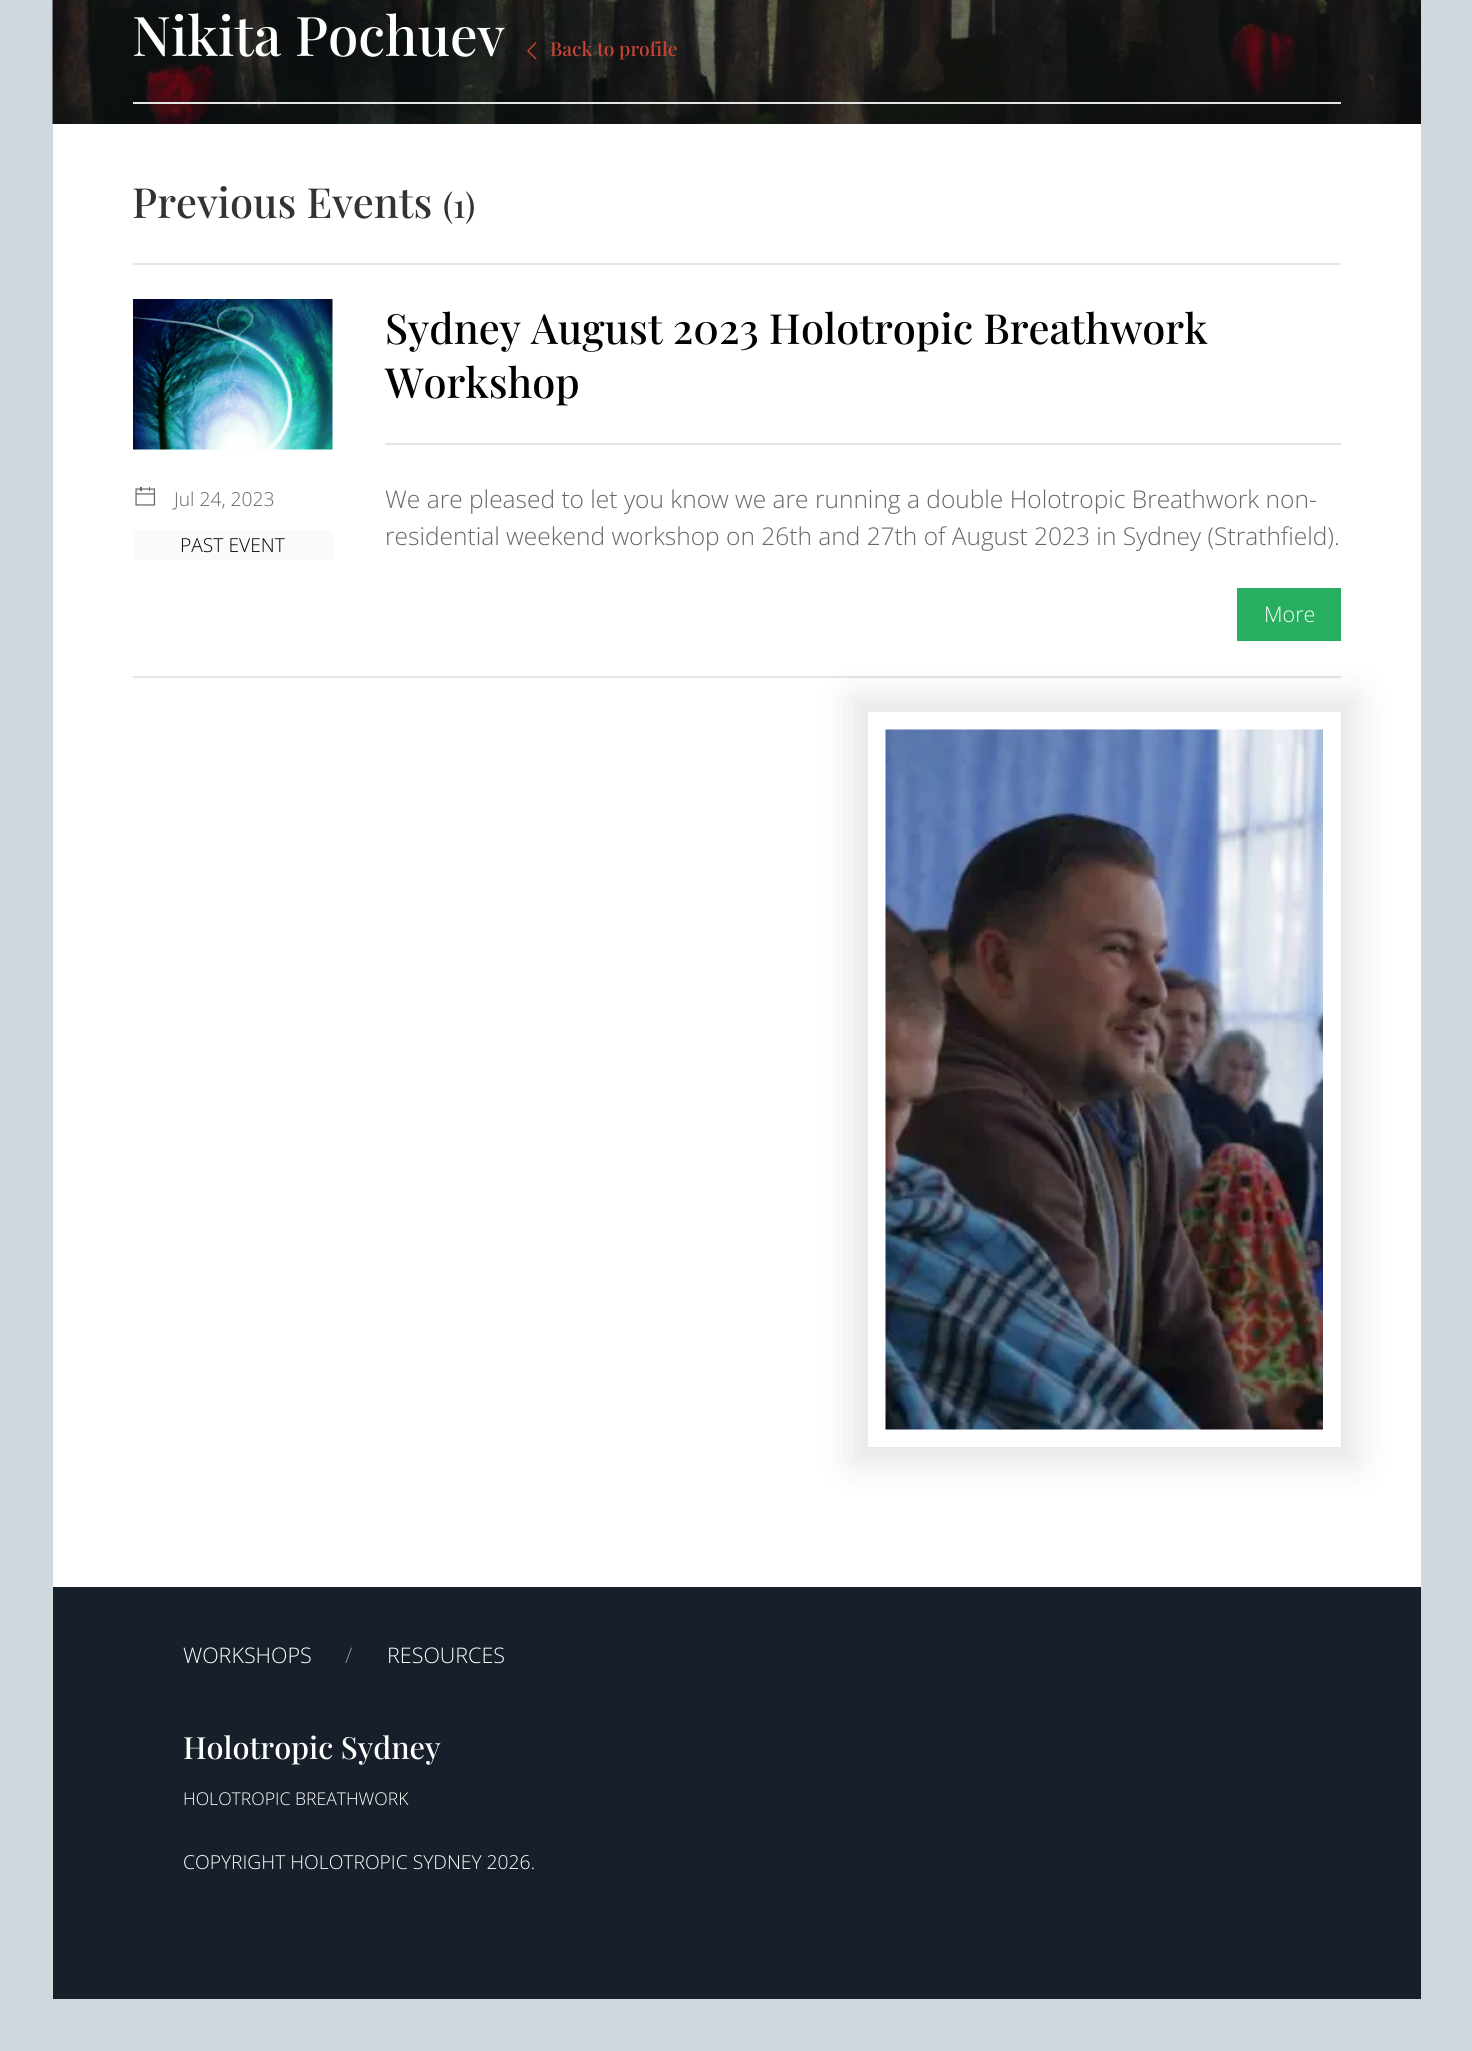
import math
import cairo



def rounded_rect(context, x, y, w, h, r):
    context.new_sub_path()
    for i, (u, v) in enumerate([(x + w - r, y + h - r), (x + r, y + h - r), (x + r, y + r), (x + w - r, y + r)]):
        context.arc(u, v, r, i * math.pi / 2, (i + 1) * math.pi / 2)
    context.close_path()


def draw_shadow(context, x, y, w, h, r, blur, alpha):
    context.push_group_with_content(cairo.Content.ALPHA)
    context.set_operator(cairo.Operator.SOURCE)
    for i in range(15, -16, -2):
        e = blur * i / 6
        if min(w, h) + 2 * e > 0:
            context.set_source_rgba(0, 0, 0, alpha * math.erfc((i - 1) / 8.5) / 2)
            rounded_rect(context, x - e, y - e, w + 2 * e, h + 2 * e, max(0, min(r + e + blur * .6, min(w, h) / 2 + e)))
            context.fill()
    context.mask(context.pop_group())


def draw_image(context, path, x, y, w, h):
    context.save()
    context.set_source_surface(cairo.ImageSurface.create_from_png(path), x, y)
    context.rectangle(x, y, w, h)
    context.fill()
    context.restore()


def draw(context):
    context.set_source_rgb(207 / 255, 216 / 255, 220 / 255)
    context.paint()
    draw_image(context, "images/1.png", 52, 0, 1369, 124)
    context.set_source_rgb(1, 1, 1)
    context.rectangle(53, 124, 1368, 1376)
    context.fill()
    context.new_path()
    context.move_to(536, 59)
    context.line_to(528, 51)
    context.line_to(536, 42.5)
    context.set_source_rgb(203 / 255, 67 / 255, 53 / 255)
    context.set_line_width(1.4)
    context.stroke()
    context.set_source_rgb(229 / 255, 229 / 255, 229 / 255)
    context.rectangle(133, 102, 1208, 2)
    context.fill()
    context.rectangle(133, 263, 1208, 2)
    context.fill()
    draw_image(context, "images/2.png", 133, 299, 200, 151)
    draw_image(context, "images/3.png", 135, 487, 21, 19)
    context.set_source_rgb(250 / 255, 250 / 255, 250 / 255)
    context.rectangle(133, 530, 200, 30)
    context.fill()
    context.set_source_rgb(229 / 255, 229 / 255, 229 / 255)
    context.rectangle(385, 443, 956, 2)
    context.fill()
    context.set_source_rgb(39 / 255, 174 / 255, 96 / 255)
    context.rectangle(1237, 588, 104, 53)
    context.fill()
    context.set_source_rgb(229 / 255, 229 / 255, 229 / 255)
    context.rectangle(133, 676, 1208, 2)
    context.fill()
    context.set_source_rgb(0, 0, 0)
    draw_shadow(context, 851, 695, 507, 770, 0, 17.5, 0.1)
    context.rectangle(877, 721, 455, 717)
    context.set_source_rgb(1, 1, 1)
    context.set_line_width(18)
    context.stroke()
    draw_image(context, "images/4.png", 885, 729, 438, 701)
    context.rectangle(53, 1500, 1368, 87)
    context.fill()
    context.set_source_rgb(23 / 255, 32 / 255, 42 / 255)
    context.rectangle(53, 1587, 1368, 412)
    context.fill()
    context.select_font_face("Playfair Display Medium")
    context.set_font_size(54.75)
    context.set_source_rgb(1, 1, 1)
    context.move_to(132, 56)
    context.show_text("Nikita Pochuev")
    context.set_font_size(19.25)
    context.set_source_rgb(203 / 255, 67 / 255, 53 / 255)
    context.move_to(550, 56)
    context.show_text("Back to profile")
    context.set_font_size(41.6)
    context.set_source_rgb(51 / 255, 51 / 255, 51 / 255)
    context.move_to(132, 218)
    context.show_text("Previous Events")
    context.set_font_size(33)
    context.move_to(443, 218)
    context.show_text("(1)")
    context.select_font_face("Open Sans Light")
    context.set_font_size(19.25)
    context.set_source_rgb(102 / 255, 102 / 255, 102 / 255)
    context.move_to(174, 506)
    context.show_text("Jul 24, 2023")
    context.set_source_rgb(0, 0, 0)
    context.move_to(180, 552)
    context.show_text("PAST EVENT")
    context.select_font_face("Playfair Display Medium")
    context.set_font_size(41.6)
    context.move_to(385, 344)
    context.show_text("Sydney August 2023 Holotropic Breathwork")
    context.move_to(385, 398)
    context.show_text("Workshop")
    context.select_font_face("Open Sans Light")
    context.set_font_size(24.5)
    context.set_source_rgb(102 / 255, 102 / 255, 102 / 255)
    context.move_to(385, 508)
    context.show_text("We are pleased to let you know we are running a double Holotropic Breathwork non-")
    context.move_to(385, 545)
    context.show_text("residential weekend workshop on 26th and 27th of August 2023 in Sydney (Strathfield).")
    context.set_font_size(21.5)
    context.set_source_rgb(1, 1, 1)
    context.move_to(1264, 622)
    context.show_text("More")
    context.move_to(183, 1663)
    context.show_text("WORKSHOPS")
    context.set_source_rgb(139 / 255, 144 / 255, 149 / 255)
    context.move_to(345, 1663)
    context.show_text("/")
    context.set_source_rgb(1, 1, 1)
    context.move_to(387, 1663)
    context.show_text("RESOURCES")
    context.select_font_face("Playfair Display Medium")
    context.set_font_size(30.6)
    context.move_to(183, 1759)
    context.show_text("Holotropic Sydney")
    context.select_font_face("Open Sans Light")
    context.set_font_size(17.6)
    context.move_to(183, 1805)
    context.show_text("HOLOTROPIC BREATHWORK")
    context.set_font_size(19.25)
    context.move_to(183, 1869)
    context.show_text("COPYRIGHT HOLOTROPIC SYDNEY 2026.")


surface = cairo.ImageSurface(cairo.Format.RGB24, 1472, 2051)
context = cairo.Context(surface)
options = cairo.FontOptions()
options.set_hint_metrics(cairo.HintMetrics.OFF)
options.set_hint_style(cairo.HintStyle.NONE)
context.set_font_options(options)
context.set_miter_limit(4)
draw(context)
surface.write_to_png("out.png")
